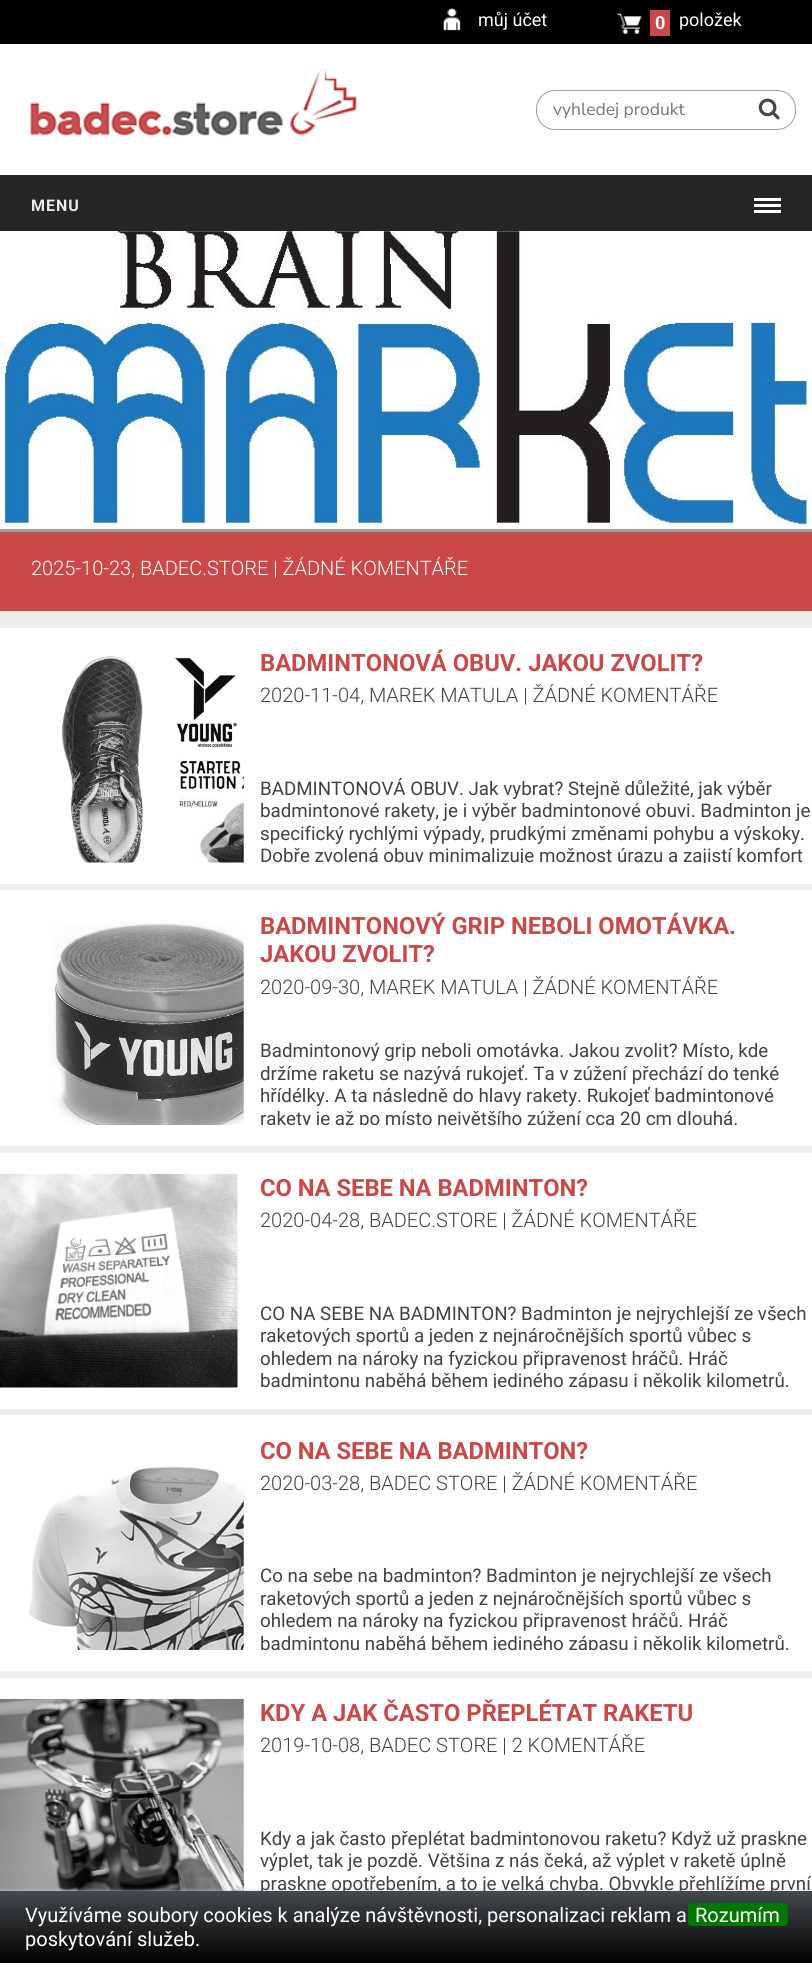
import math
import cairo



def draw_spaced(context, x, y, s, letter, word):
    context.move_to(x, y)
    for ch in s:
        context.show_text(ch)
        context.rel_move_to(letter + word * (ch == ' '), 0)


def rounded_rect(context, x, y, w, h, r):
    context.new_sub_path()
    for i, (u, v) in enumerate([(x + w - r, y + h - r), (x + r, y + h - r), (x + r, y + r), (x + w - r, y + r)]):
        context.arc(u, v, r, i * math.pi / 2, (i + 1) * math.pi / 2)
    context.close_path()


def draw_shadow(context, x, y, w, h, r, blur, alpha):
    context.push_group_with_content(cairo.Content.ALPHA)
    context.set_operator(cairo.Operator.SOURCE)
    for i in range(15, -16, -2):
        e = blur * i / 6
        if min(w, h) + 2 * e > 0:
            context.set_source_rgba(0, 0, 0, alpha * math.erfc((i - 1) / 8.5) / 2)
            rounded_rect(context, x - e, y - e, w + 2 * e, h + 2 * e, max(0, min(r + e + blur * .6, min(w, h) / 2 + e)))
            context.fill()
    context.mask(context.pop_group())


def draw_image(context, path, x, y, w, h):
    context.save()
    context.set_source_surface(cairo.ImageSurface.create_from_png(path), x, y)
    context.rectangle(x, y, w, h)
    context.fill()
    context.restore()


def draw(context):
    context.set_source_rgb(1, 1, 1)
    context.paint()
    context.set_source_rgb(0, 0, 0)
    context.rectangle(0, 0, 812, 44)
    context.fill()
    draw_image(context, "images/1.png", 443, 8, 18, 23)
    draw_image(context, "images/2.png", 617, 13, 25, 21)
    context.set_source_rgb(202 / 255, 72 / 255, 72 / 255)
    context.rectangle(650, 10, 20, 26)
    context.fill()
    draw_image(context, "images/3.png", 29, 70, 328, 67)
    rounded_rect(context, 536.5, 90.5, 259, 39, 18.5)
    context.set_source_rgb(157 / 255, 157 / 255, 157 / 255)
    context.set_line_width(1)
    context.stroke()
    draw_image(context, "images/4.png", 758, 98, 22, 22)
    context.set_source_rgb(39 / 255, 38 / 255, 38 / 255)
    context.rectangle(0, 175, 812, 56)
    context.fill()
    context.set_source_rgb(1, 1, 1)
    context.rectangle(754, 198, 27, 3)
    context.fill()
    context.rectangle(754, 204, 27, 3)
    context.fill()
    context.rectangle(754, 210, 27, 3)
    context.fill()
    context.set_source_rgb(238 / 255, 238 / 255, 238 / 255)
    context.rectangle(0, 231, 812, 1447)
    context.fill()
    draw_image(context, "images/5.png", 0, 231, 812, 298)
    context.set_source_rgb(159 / 255, 159 / 255, 159 / 255)
    context.rectangle(0, 529, 812, 3)
    context.fill()
    context.set_source_rgb(202 / 255, 72 / 255, 72 / 255)
    context.rectangle(0, 532, 812, 79)
    context.fill()
    context.set_source_rgb(1, 1, 1)
    context.rectangle(0, 628, 812, 256)
    context.fill()
    draw_image(context, "images/6.png", 61, 656, 183, 207)
    context.rectangle(0, 890, 812, 256)
    context.fill()
    draw_image(context, "images/7.png", 49, 921, 195, 204)
    context.rectangle(0, 1153, 812, 256)
    context.fill()
    draw_image(context, "images/8.png", 0, 1173, 238, 215)
    context.rectangle(0, 1415, 812, 256)
    context.fill()
    draw_image(context, "images/9.png", 28, 1466, 216, 184)
    draw_image(context, "images/10.png", 0, 1698, 244, 193)
    context.set_source_rgb(204 / 255, 204 / 255, 204 / 255)
    draw_shadow(context, 0, 1891, 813, 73, 0, 2, 1)
    context.select_font_face("Roboto")
    context.set_font_size(18)
    context.set_source_rgb(1, 1, 1)
    context.move_to(478, 26)
    context.show_text("můj účet")
    context.select_font_face("Roboto", cairo.FontSlant.NORMAL, cairo.FontWeight.BOLD)
    context.move_to(655, 29)
    context.show_text("0")
    context.select_font_face("Roboto")
    context.move_to(679, 26)
    context.show_text("položek")
    context.select_font_face("Nunito Sans")
    context.set_font_size(17.5)
    context.set_source_rgb(117 / 255, 117 / 255, 117 / 255)
    context.move_to(553, 115)
    context.show_text("vyhledej produkt")
    context.select_font_face("Roboto", cairo.FontSlant.NORMAL, cairo.FontWeight.BOLD)
    context.set_font_size(16)
    context.set_source_rgb(234 / 255, 234 / 255, 234 / 255)
    draw_spaced(context, 31, 211, "MENU", 1, 0)
    context.select_font_face("Roboto Light")
    context.set_font_size(20)
    context.set_source_rgb(1, 1, 1)
    context.move_to(31, 575)
    context.show_text("2025-10-23, BADEC.STORE | ŽÁDNÉ KOMENTÁŘE")
    context.select_font_face("Roboto", cairo.FontSlant.NORMAL, cairo.FontWeight.BOLD)
    context.set_font_size(23.75)
    context.set_source_rgb(202 / 255, 72 / 255, 72 / 255)
    context.move_to(260, 671)
    context.show_text("BADMINTONOVÁ OBUV. JAKOU ZVOLIT?")
    context.select_font_face("Roboto Light")
    context.set_font_size(20)
    context.set_source_rgb(66 / 255, 66 / 255, 66 / 255)
    context.move_to(260, 702)
    context.show_text("2020-11-04, MAREK MATULA | ŽÁDNÉ KOMENTÁŘE")
    context.select_font_face("Roboto")
    context.set_font_size(18.75)
    context.move_to(260, 795)
    context.show_text("BADMINTONOVÁ OBUV. Jak vybrat? Stejně důležité, jak výběr")
    context.move_to(260, 817)
    context.show_text("badmintonové rakety, je i výběr badmintonové obuvi. Badminton je")
    context.move_to(260, 840)
    context.show_text("specifický rychlými výpady, prudkými změnami pohybu a výskoky.")
    context.save()
    context.rectangle(260, 778, 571, 85)
    context.clip()
    context.move_to(260, 862)
    context.show_text("Dobře zvolená obuv minimalizuje možnost úrazu a zajistí komfort")
    context.restore()
    context.select_font_face("Roboto", cairo.FontSlant.NORMAL, cairo.FontWeight.BOLD)
    context.set_font_size(23.75)
    context.set_source_rgb(202 / 255, 72 / 255, 72 / 255)
    context.move_to(260, 934)
    context.show_text("BADMINTONOVÝ GRIP NEBOLI OMOTÁVKA.")
    context.move_to(260, 962)
    context.show_text("JAKOU ZVOLIT?")
    context.select_font_face("Roboto Light")
    context.set_font_size(20)
    context.set_source_rgb(66 / 255, 66 / 255, 66 / 255)
    context.move_to(260, 994)
    context.show_text("2020-09-30, MAREK MATULA | ŽÁDNÉ KOMENTÁŘE")
    context.select_font_face("Roboto")
    context.set_font_size(18.75)
    context.move_to(260, 1057)
    context.show_text("Badmintonový grip neboli omotávka. Jakou zvolit? Místo, kde")
    context.move_to(260, 1080)
    context.show_text("držíme raketu se nazývá rukojeť. Ta v zúžení přechází do tenké")
    context.move_to(260, 1102)
    context.show_text("hřídélky. A ta následně do hlavy rakety. Rukojeť badmintonové")
    context.save()
    context.rectangle(260, 1040, 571, 85)
    context.clip()
    context.move_to(260, 1125)
    context.show_text("rakety je až po místo největšího zúžení cca 20 cm dlouhá.")
    context.restore()
    context.select_font_face("Roboto", cairo.FontSlant.NORMAL, cairo.FontWeight.BOLD)
    context.set_font_size(23.75)
    context.set_source_rgb(202 / 255, 72 / 255, 72 / 255)
    context.move_to(260, 1196)
    context.show_text("CO NA SEBE NA BADMINTON?")
    context.select_font_face("Roboto Light")
    context.set_font_size(20)
    context.set_source_rgb(66 / 255, 66 / 255, 66 / 255)
    context.move_to(260, 1227)
    context.show_text("2020-04-28, BADEC.STORE | ŽÁDNÉ KOMENTÁŘE")
    context.select_font_face("Roboto")
    context.set_font_size(18.75)
    context.move_to(260, 1320)
    context.show_text("CO NA SEBE NA BADMINTON? Badminton je nejrychlejší ze všech")
    context.move_to(260, 1342)
    context.show_text("raketových sportů a jeden z nejnáročnějších sportů vůbec s")
    context.move_to(260, 1365)
    context.show_text("ohledem na nároky na fyzickou připravenost hráčů. Hráč")
    context.save()
    context.rectangle(260, 1303, 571, 85)
    context.clip()
    context.move_to(260, 1387)
    context.show_text("badmintonu naběhá během jediného zápasu i několik kilometrů.")
    context.restore()
    context.select_font_face("Roboto", cairo.FontSlant.NORMAL, cairo.FontWeight.BOLD)
    context.set_font_size(23.75)
    context.set_source_rgb(202 / 255, 72 / 255, 72 / 255)
    context.move_to(260, 1459)
    context.show_text("CO NA SEBE NA BADMINTON?")
    context.select_font_face("Roboto Light")
    context.set_font_size(20)
    context.set_source_rgb(66 / 255, 66 / 255, 66 / 255)
    context.move_to(260, 1490)
    context.show_text("2020-03-28, BADEC STORE | ŽÁDNÉ KOMENTÁŘE")
    context.select_font_face("Roboto")
    context.set_font_size(18.75)
    context.move_to(260, 1582)
    context.show_text("Co na sebe na badminton? Badminton je nejrychlejší ze všech")
    context.move_to(260, 1605)
    context.show_text("raketových sportů a jeden z nejnáročnějších sportů vůbec s")
    context.move_to(260, 1627)
    context.show_text("ohledem na nároky na fyzickou připravenost hráčů. Hráč")
    context.save()
    context.rectangle(260, 1565, 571, 85)
    context.clip()
    context.move_to(260, 1650)
    context.show_text("badmintonu naběhá během jediného zápasu i několik kilometrů.")
    context.restore()
    context.select_font_face("Roboto", cairo.FontSlant.NORMAL, cairo.FontWeight.BOLD)
    context.set_font_size(23.75)
    context.set_source_rgb(202 / 255, 72 / 255, 72 / 255)
    context.move_to(260, 1721)
    context.show_text("KDY A JAK ČASTO PŘEPLÉTAT RAKETU")
    context.select_font_face("Roboto Light")
    context.set_font_size(20)
    context.set_source_rgb(66 / 255, 66 / 255, 66 / 255)
    context.move_to(260, 1752)
    context.show_text("2019-10-08, BADEC STORE | 2 KOMENTÁŘE")
    context.select_font_face("Roboto")
    context.set_font_size(18.75)
    context.move_to(260, 1845)
    context.show_text("Kdy a jak často přeplétat badmintonovou raketu? Když už praskne")
    context.move_to(260, 1867)
    context.show_text("výplet, tak je pozdě. Většina z nás čeká, až výplet v raketě úplně")
    context.move_to(260, 1890)
    context.show_text("praskne opotřebením, a to je velká chyba. Obvykle přehlížíme první")
    gradient = cairo.LinearGradient(406, 1891, 406, 1963)
    gradient.add_color_stop_rgba(0, 69 / 255, 72 / 255, 77 / 255, 1)
    gradient.add_color_stop_rgba(1, 0, 0, 0, 1)
    context.set_source(gradient)
    context.rectangle(0, 1891, 812, 72)
    context.fill()
    context.set_font_size(20)
    context.set_source_rgb(1, 1, 1)
    context.move_to(25, 1922)
    context.show_text("Využíváme soubory cookies k analýze návštěvnosti, personalizaci reklam a")
    context.move_to(25, 1946)
    context.show_text("poskytování služeb.")
    context.set_source_rgb(0, 119 / 255, 0)
    rounded_rect(context, 688, 1903, 100, 23, 4)
    context.fill()
    context.set_source_rgb(1, 1, 1)
    context.move_to(695, 1922)
    context.show_text("Rozumím")


surface = cairo.ImageSurface(cairo.Format.RGB24, 812, 1963)
context = cairo.Context(surface)
options = cairo.FontOptions()
options.set_hint_metrics(cairo.HintMetrics.OFF)
options.set_hint_style(cairo.HintStyle.NONE)
context.set_font_options(options)
context.set_miter_limit(4)
draw(context)
surface.write_to_png("out.png")
